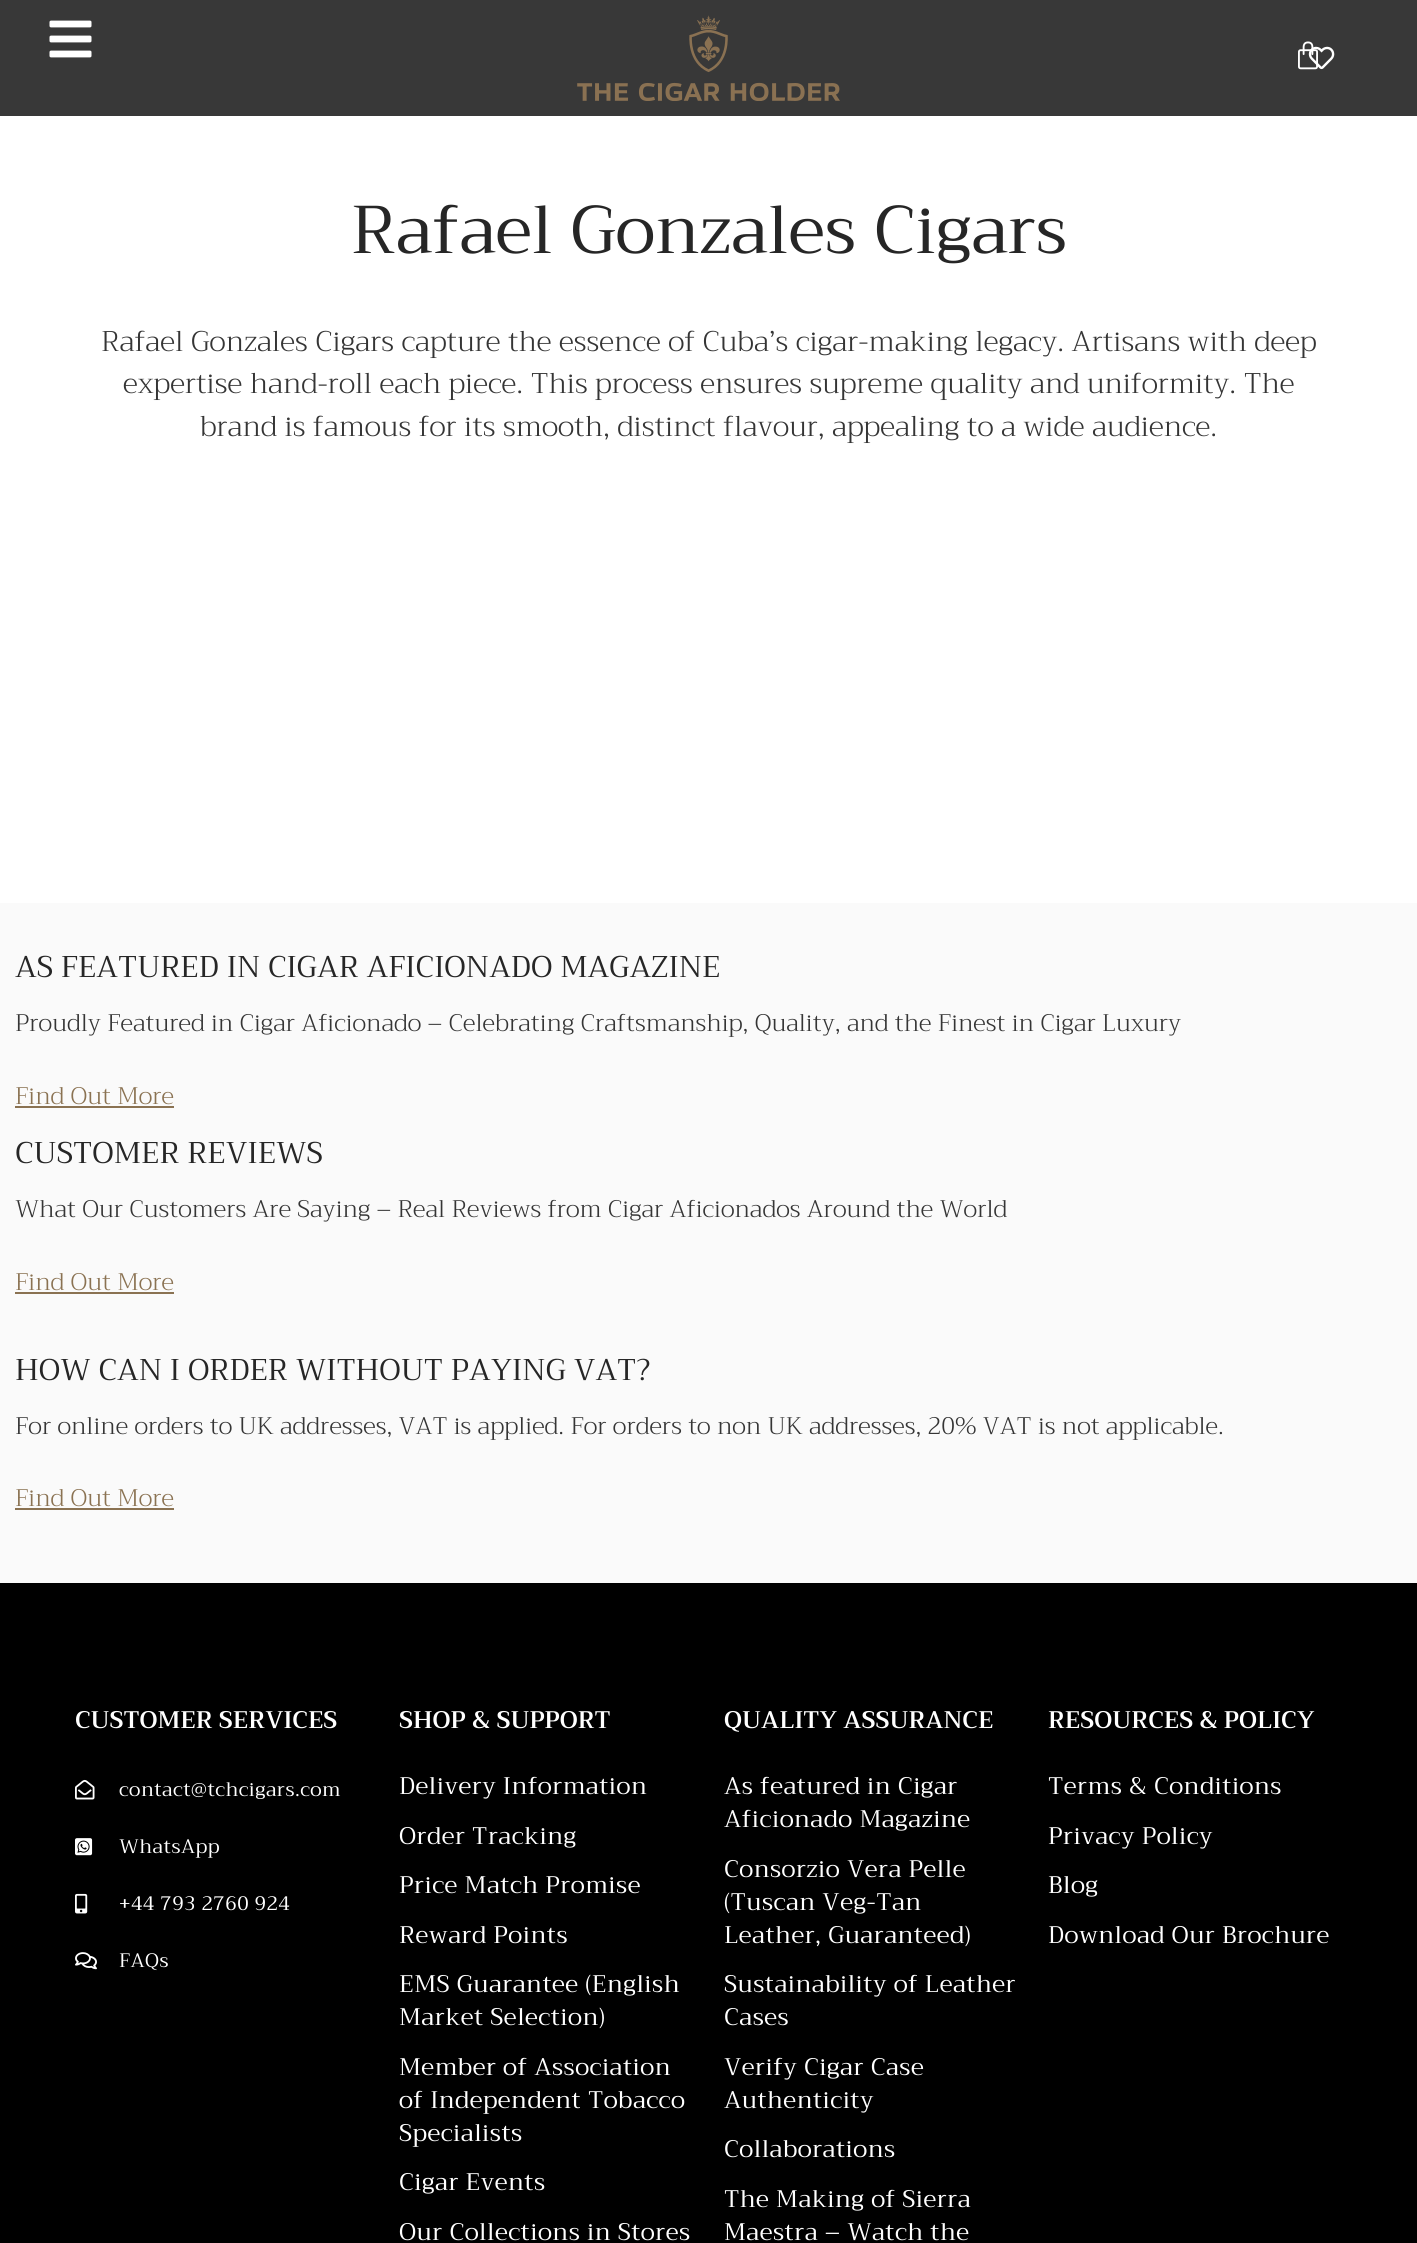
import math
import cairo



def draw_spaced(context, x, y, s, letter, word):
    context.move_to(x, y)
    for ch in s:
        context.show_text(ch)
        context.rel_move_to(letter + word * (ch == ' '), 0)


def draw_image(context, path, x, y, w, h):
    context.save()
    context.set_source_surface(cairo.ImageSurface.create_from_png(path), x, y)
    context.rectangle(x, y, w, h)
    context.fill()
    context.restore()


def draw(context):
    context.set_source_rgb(1, 1, 1)
    context.paint()
    context.set_source_rgb(56 / 255, 56 / 255, 56 / 255)
    context.rectangle(0, 0, 1417, 116)
    context.fill()
    draw_image(context, "images/1.png", 49, 20, 43, 38)
    draw_image(context, "images/2.png", 577, 15, 263, 86)
    draw_image(context, "images/4.png", 1308, 46, 27, 24)
    draw_image(context, "images/3.png", 1298, 41, 20, 29)
    context.set_source_rgb(250 / 255, 250 / 255, 250 / 255)
    context.rectangle(0, 903, 1417, 680)
    context.fill()
    context.set_source_rgb(138 / 255, 114 / 255, 82 / 255)
    context.rectangle(15, 1106, 159, 2)
    context.fill()
    context.rectangle(15, 1292, 159, 2)
    context.fill()
    context.rectangle(15, 1508, 159, 2)
    context.fill()
    context.set_source_rgb(0, 0, 0)
    context.rectangle(0, 1583, 1417, 660)
    context.fill()
    draw_image(context, "images/5.png", 75, 1779, 20, 21)
    draw_image(context, "images/6.png", 75, 1838, 18, 18)
    draw_image(context, "images/7.png", 75, 1893, 13, 21)
    draw_image(context, "images/8.png", 75, 1952, 22, 18)
    context.select_font_face("Trirong")
    context.set_font_size(67.5)
    context.set_source_rgb(38 / 255, 38 / 255, 38 / 255)
    context.move_to(351, 253)
    context.show_text("Rafael Gonzales Cigars")
    context.select_font_face("Trirong Light")
    context.set_font_size(28.5)
    context.set_source_rgb(53 / 255, 53 / 255, 53 / 255)
    context.move_to(101, 351)
    context.show_text("Rafael Gonzales Cigars capture the essence of Cuba’s cigar-making legacy. Artisans with deep")
    context.move_to(123, 393)
    context.show_text("expertise hand-roll each piece. This process ensures supreme quality and uniformity. The")
    context.move_to(200, 436)
    context.show_text("brand is famous for its smooth, distinct flavour, appealing to a wide audience.")
    context.select_font_face("Trirong")
    context.set_font_size(30)
    context.set_source_rgb(38 / 255, 38 / 255, 38 / 255)
    context.move_to(15, 977)
    context.show_text("AS FEATURED IN CIGAR AFICIONADO MAGAZINE")
    context.select_font_face("Trirong Light")
    context.set_font_size(24)
    context.set_source_rgb(53 / 255, 53 / 255, 53 / 255)
    context.move_to(15, 1031)
    context.show_text("Proudly Featured in Cigar Aficionado – Celebrating Craftsmanship, Quality, and the Finest in Cigar Luxury")
    context.set_source_rgb(138 / 255, 114 / 255, 82 / 255)
    context.move_to(15, 1104)
    context.show_text("Find Out More")
    context.select_font_face("Trirong")
    context.set_font_size(30)
    context.set_source_rgb(38 / 255, 38 / 255, 38 / 255)
    context.move_to(15, 1163)
    context.show_text("CUSTOMER REVIEWS")
    context.select_font_face("Trirong Light")
    context.set_font_size(24)
    context.set_source_rgb(53 / 255, 53 / 255, 53 / 255)
    context.move_to(15, 1217)
    context.show_text("What Our Customers Are Saying – Real Reviews from Cigar Aficionados Around the World")
    context.set_source_rgb(138 / 255, 114 / 255, 82 / 255)
    context.move_to(15, 1290)
    context.show_text("Find Out More")
    context.select_font_face("Trirong")
    context.set_font_size(30)
    context.set_source_rgb(38 / 255, 38 / 255, 38 / 255)
    context.move_to(15, 1380)
    context.show_text("HOW CAN I ORDER WITHOUT PAYING VAT?")
    context.select_font_face("Trirong Light")
    context.set_font_size(24)
    context.set_source_rgb(53 / 255, 53 / 255, 53 / 255)
    context.move_to(15, 1434)
    context.show_text("For online orders to UK addresses, VAT is applied. For orders to non UK addresses, 20% VAT is not applicable.")
    context.set_source_rgb(138 / 255, 114 / 255, 82 / 255)
    context.move_to(15, 1506)
    context.show_text("Find Out More")
    context.select_font_face("Trirong SemiBold")
    context.set_source_rgb(1, 1, 1)
    context.move_to(75, 1728)
    context.show_text("CUSTOMER SERVICES")
    context.select_font_face("Trirong")
    context.set_font_size(19.5)
    draw_spaced(context, 119, 1796, "contact@tchcigars.com", 0.45, 0)
    draw_spaced(context, 119, 1853, "WhatsApp", 0.45, 0)
    draw_spaced(context, 119, 1910, "+44 793 2760 924", 0.45, 0)
    draw_spaced(context, 119, 1967, "FAQs", 0.45, 0)
    context.select_font_face("Trirong SemiBold")
    context.set_font_size(24)
    context.move_to(399, 1728)
    context.show_text("SHOP & SUPPORT")
    context.select_font_face("Trirong")
    draw_spaced(context, 399, 1794, "Delivery Information", 0.45, 0)
    draw_spaced(context, 399, 1844, "Order Tracking", 0.45, 0)
    draw_spaced(context, 399, 1893, "Price Match Promise", 0.45, 0)
    draw_spaced(context, 399, 1943, "Reward Points", 0.45, 0)
    draw_spaced(context, 399, 1992, "EMS Guarantee (English", 0.45, 0)
    draw_spaced(context, 399, 2025, "Market Selection)", 0.45, 0)
    draw_spaced(context, 399, 2075, "Member of Association", 0.45, 0)
    draw_spaced(context, 399, 2108, "of Independent Tobacco", 0.45, 0)
    draw_spaced(context, 399, 2141, "Specialists", 0.45, 0)
    draw_spaced(context, 399, 2190, "Cigar Events", 0.45, 0)
    draw_spaced(context, 399, 2240, "Our Collections in Stores", 0.45, 0)
    context.select_font_face("Trirong SemiBold")
    context.move_to(724, 1728)
    context.show_text("QUALITY ASSURANCE")
    context.select_font_face("Trirong")
    draw_spaced(context, 724, 1794, "As featured in Cigar", 0.45, 0)
    draw_spaced(context, 724, 1827, "Aficionado Magazine", 0.45, 0)
    draw_spaced(context, 724, 1877, "Consorzio Vera Pelle", 0.45, 0)
    draw_spaced(context, 724, 1910, "(Tuscan Veg-Tan", 0.45, 0)
    draw_spaced(context, 724, 1943, "Leather, Guaranteed)", 0.45, 0)
    draw_spaced(context, 724, 1992, "Sustainability of Leather", 0.45, 0)
    draw_spaced(context, 724, 2025, "Cases", 0.45, 0)
    draw_spaced(context, 724, 2075, "Verify Cigar Case", 0.45, 0)
    draw_spaced(context, 724, 2108, "Authenticity", 0.45, 0)
    draw_spaced(context, 724, 2157, "Collaborations", 0.45, 0)
    draw_spaced(context, 724, 2207, "The Making of Sierra", 0.45, 0)
    draw_spaced(context, 724, 2240, "Maestra – Watch the", 0.45, 0)
    context.select_font_face("Trirong SemiBold")
    context.move_to(1048, 1728)
    context.show_text("RESOURCES & POLICY")
    context.select_font_face("Trirong")
    draw_spaced(context, 1048, 1794, "Terms & Conditions", 0.45, 0)
    draw_spaced(context, 1048, 1844, "Privacy Policy", 0.45, 0)
    draw_spaced(context, 1048, 1893, "Blog", 0.45, 0)
    draw_spaced(context, 1048, 1943, "Download Our Brochure", 0.45, 0)


surface = cairo.ImageSurface(cairo.Format.RGB24, 1417, 2243)
context = cairo.Context(surface)
options = cairo.FontOptions()
options.set_hint_metrics(cairo.HintMetrics.OFF)
options.set_hint_style(cairo.HintStyle.NONE)
context.set_font_options(options)
context.set_miter_limit(4)
draw(context)
surface.write_to_png("out.png")
